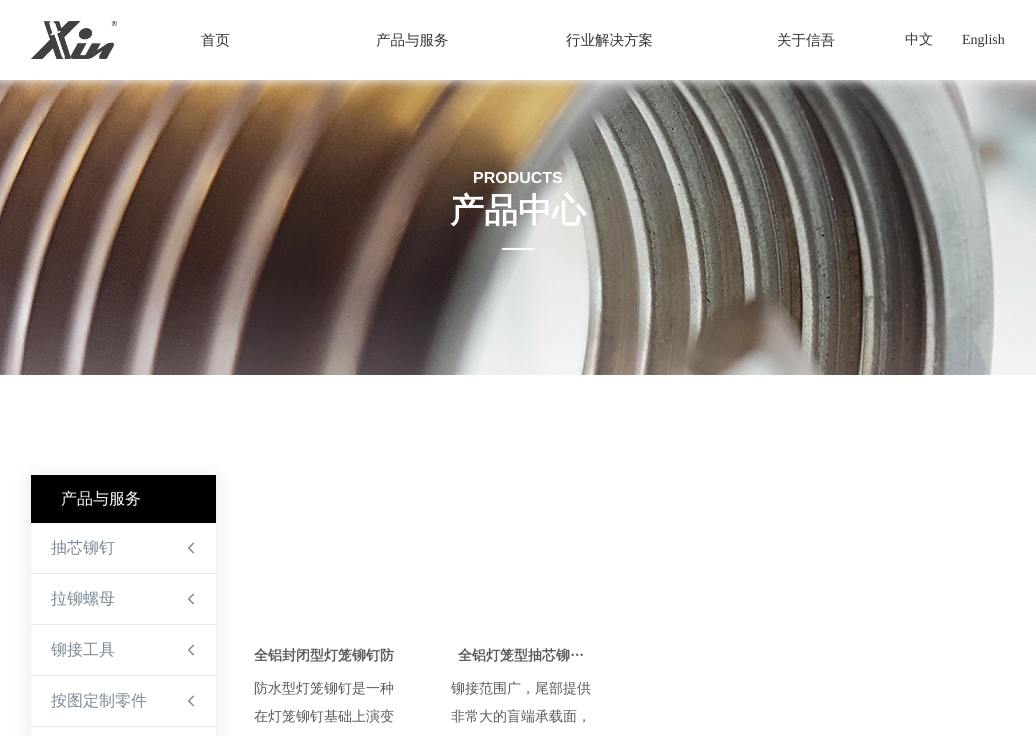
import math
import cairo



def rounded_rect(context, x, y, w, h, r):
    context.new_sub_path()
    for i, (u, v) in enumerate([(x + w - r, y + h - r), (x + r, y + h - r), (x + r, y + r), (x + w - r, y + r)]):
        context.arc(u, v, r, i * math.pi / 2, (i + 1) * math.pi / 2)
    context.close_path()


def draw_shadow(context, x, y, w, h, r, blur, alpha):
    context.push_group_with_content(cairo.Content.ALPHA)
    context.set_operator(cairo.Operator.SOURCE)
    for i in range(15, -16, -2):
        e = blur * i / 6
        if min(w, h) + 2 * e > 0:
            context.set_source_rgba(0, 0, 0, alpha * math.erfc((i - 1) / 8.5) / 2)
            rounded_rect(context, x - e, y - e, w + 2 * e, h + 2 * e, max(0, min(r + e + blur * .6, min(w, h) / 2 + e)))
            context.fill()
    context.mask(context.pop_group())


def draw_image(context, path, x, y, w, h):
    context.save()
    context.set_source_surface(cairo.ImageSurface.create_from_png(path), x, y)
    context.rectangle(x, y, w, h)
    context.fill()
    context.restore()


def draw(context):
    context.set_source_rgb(1, 1, 1)
    context.paint()
    draw_image(context, "images/2.png", 0, 80, 1036, 295)
    context.set_source_rgb(238 / 255, 238 / 255, 238 / 255)
    draw_shadow(context, 1, 1, 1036, 80, 0, 5, 1)
    context.set_source_rgb(1, 1, 1)
    context.rectangle(0, 0, 1036, 80)
    context.fill()
    draw_image(context, "images/1.png", 31, 21, 86, 38)
    context.rectangle(502, 248, 33, 2)
    context.fill()
    context.save()
    context.set_fill_rule(cairo.FillRule.EVEN_ODD)
    context.new_path()
    context.move_to(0, 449)
    context.line_to(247, 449)
    context.line_to(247, 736)
    context.line_to(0, 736)
    context.close_path()
    context.move_to(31, 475)
    context.line_to(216, 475)
    context.line_to(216, 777)
    context.line_to(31, 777)
    context.close_path()
    context.clip()
    context.set_source_rgb(192 / 255, 192 / 255, 192 / 255)
    draw_shadow(context, 31, 480, 185, 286, 0, 10, 0.4)
    context.restore()
    context.set_source_rgb(1 / 255, 1 / 255, 1 / 255)
    context.rectangle(31, 475, 185, 48)
    context.fill()
    context.set_source_rgb(232 / 255, 232 / 255, 232 / 255)
    context.rectangle(31, 573, 185, 1)
    context.fill()
    draw_image(context, "images/3.png", 188, 542, 7, 12)
    context.rectangle(31, 624, 185, 1)
    context.fill()
    draw_image(context, "images/3.png", 188, 593, 7, 12)
    context.rectangle(31, 675, 185, 1)
    context.fill()
    draw_image(context, "images/3.png", 188, 644, 7, 12)
    context.rectangle(31, 726, 185, 1)
    context.fill()
    draw_image(context, "images/3.png", 188, 695, 7, 12)
    context.select_font_face("WenQuanYi Zen Hei Medium")
    context.set_font_size(14.5)
    context.set_source_rgb(51 / 255, 51 / 255, 51 / 255)
    context.move_to(201, 45)
    context.show_text("首页")
    context.move_to(376, 45)
    context.show_text("产品与服务")
    context.move_to(566, 45)
    context.show_text("行业解决方案")
    context.move_to(777, 45)
    context.show_text("关于信吾")
    context.set_font_size(14)
    context.move_to(905, 44)
    context.show_text("中文")
    context.select_font_face("Liberation Serif")
    context.move_to(962, 44)
    context.show_text("English")
    context.select_font_face("Liberation Sans", cairo.FontSlant.NORMAL, cairo.FontWeight.BOLD)
    context.set_font_size(16)
    context.set_source_rgb(1, 1, 1)
    context.move_to(473, 183)
    context.show_text("PRODUCTS")
    context.select_font_face("WenQuanYi Zen Hei", cairo.FontSlant.NORMAL, cairo.FontWeight.BOLD)
    context.set_font_size(34)
    context.move_to(450, 222)
    context.show_text("产品中心")
    context.select_font_face("WenQuanYi Zen Hei Medium")
    context.set_font_size(16)
    context.move_to(61, 504)
    context.show_text("产品与服务")
    context.set_source_rgb(123 / 255, 138 / 255, 150 / 255)
    context.move_to(51, 553)
    context.show_text("抽芯铆钉")
    context.move_to(51, 604)
    context.show_text("拉铆螺母")
    context.move_to(51, 655)
    context.show_text("铆接工具")
    context.move_to(51, 706)
    context.show_text("按图定制零件")
    context.select_font_face("WenQuanYi Zen Hei", cairo.FontSlant.NORMAL, cairo.FontWeight.BOLD)
    context.set_font_size(14)
    context.set_source_rgb(89 / 255, 89 / 255, 89 / 255)
    context.move_to(254, 660)
    context.show_text("全铝封闭型灯笼铆钉防")
    context.select_font_face("WenQuanYi Zen Hei Medium")
    context.move_to(254, 693)
    context.show_text("防水型灯笼铆钉是一种")
    context.move_to(254, 721)
    context.show_text("在灯笼铆钉基础上演变")
    context.select_font_face("WenQuanYi Zen Hei", cairo.FontSlant.NORMAL, cairo.FontWeight.BOLD)
    context.move_to(458, 660)
    context.show_text("全铝灯笼型抽芯铆…")
    context.select_font_face("WenQuanYi Zen Hei Medium")
    context.move_to(451, 693)
    context.show_text("铆接范围广，尾部提供")
    context.move_to(451, 721)
    context.show_text("非常大的盲端承载面，")


surface = cairo.ImageSurface(cairo.Format.RGB24, 1036, 736)
context = cairo.Context(surface)
options = cairo.FontOptions()
options.set_hint_metrics(cairo.HintMetrics.OFF)
options.set_hint_style(cairo.HintStyle.NONE)
context.set_font_options(options)
context.set_miter_limit(4)
draw(context)
surface.write_to_png("out.png")
